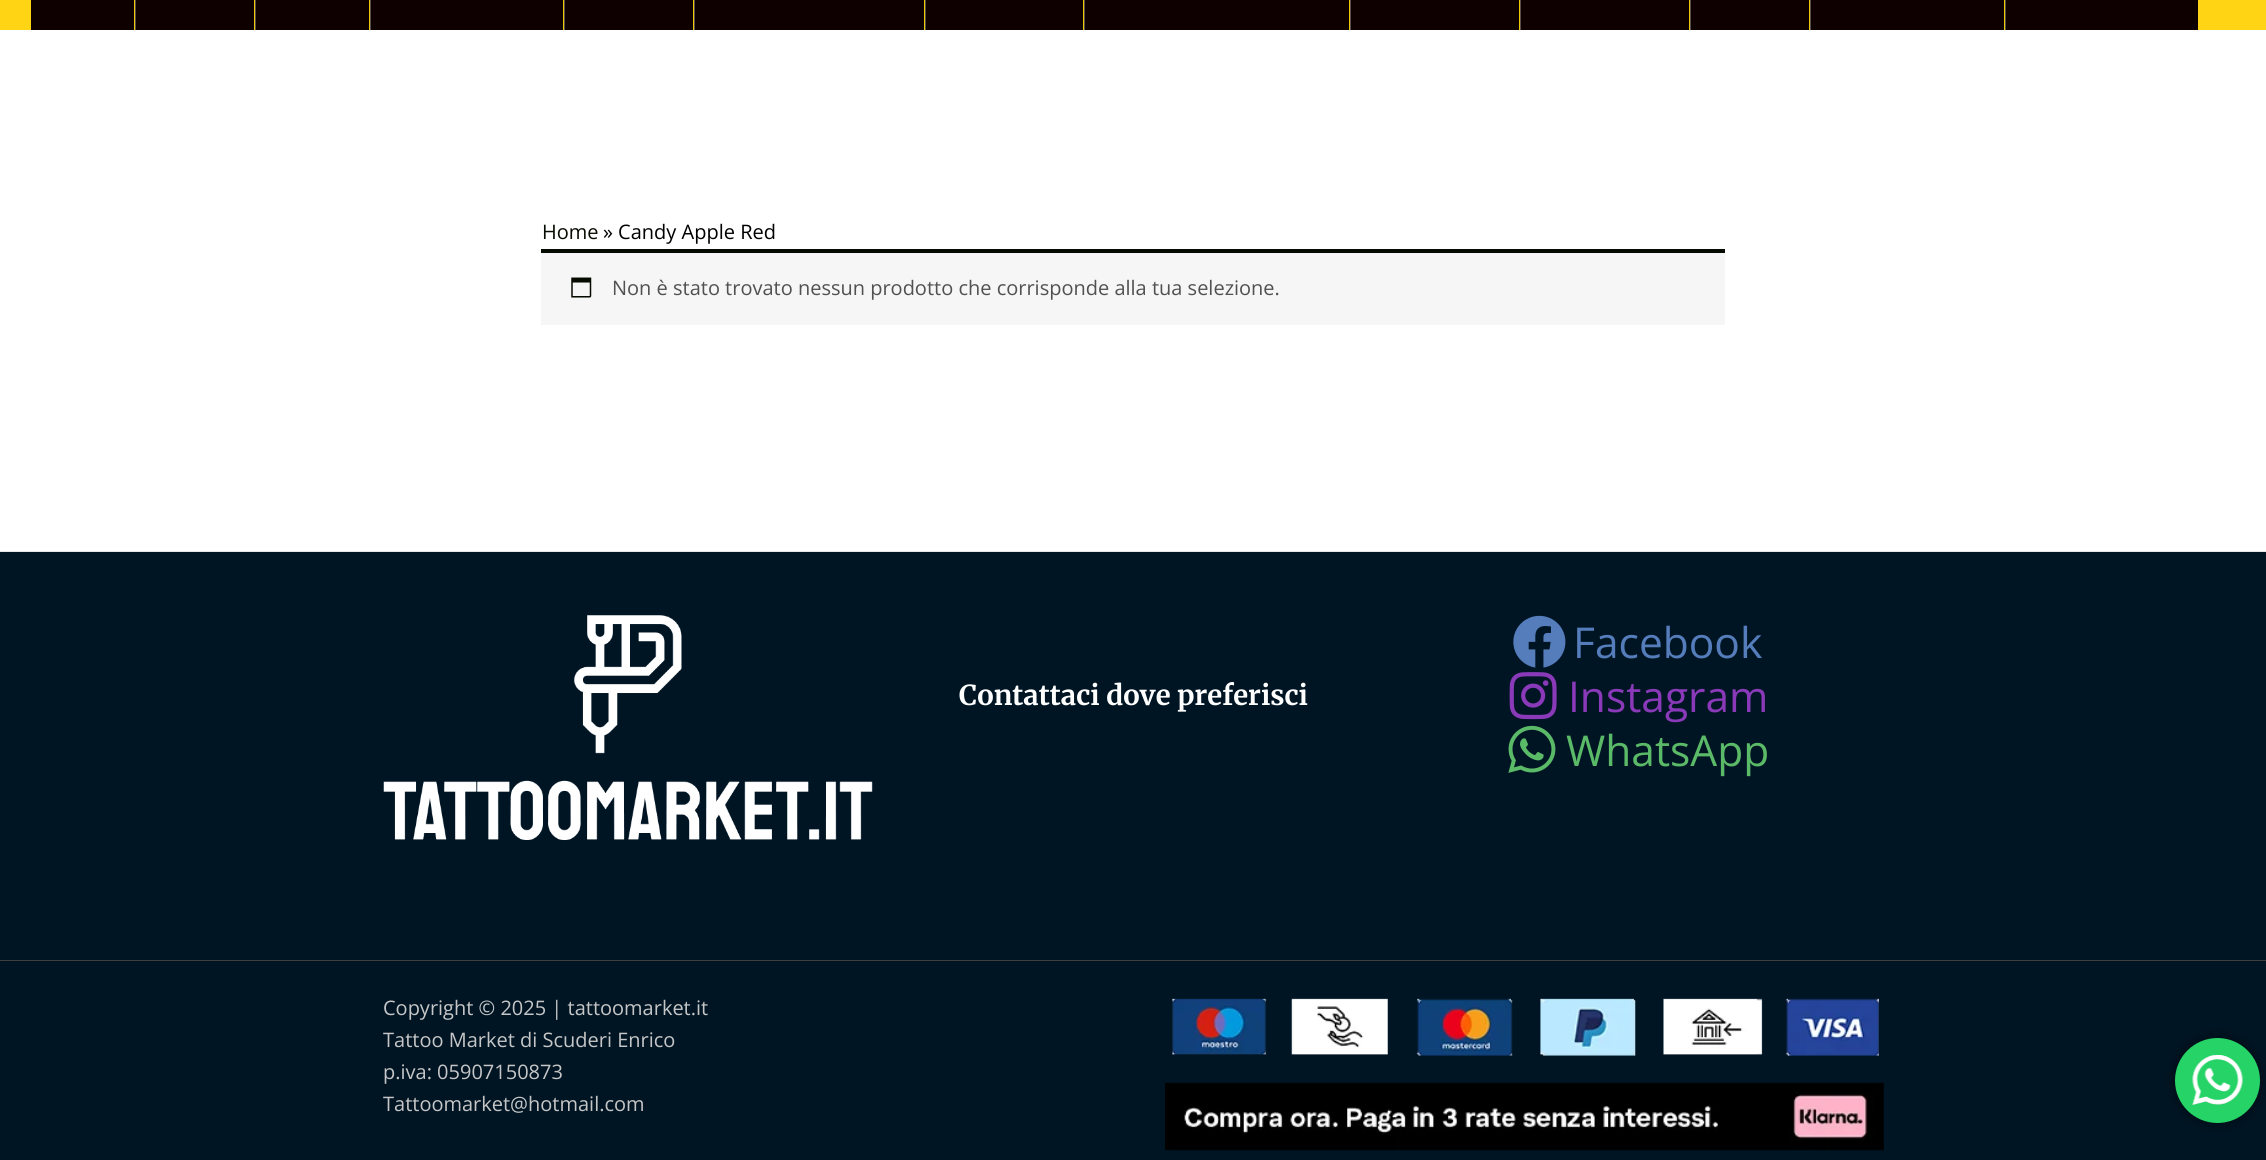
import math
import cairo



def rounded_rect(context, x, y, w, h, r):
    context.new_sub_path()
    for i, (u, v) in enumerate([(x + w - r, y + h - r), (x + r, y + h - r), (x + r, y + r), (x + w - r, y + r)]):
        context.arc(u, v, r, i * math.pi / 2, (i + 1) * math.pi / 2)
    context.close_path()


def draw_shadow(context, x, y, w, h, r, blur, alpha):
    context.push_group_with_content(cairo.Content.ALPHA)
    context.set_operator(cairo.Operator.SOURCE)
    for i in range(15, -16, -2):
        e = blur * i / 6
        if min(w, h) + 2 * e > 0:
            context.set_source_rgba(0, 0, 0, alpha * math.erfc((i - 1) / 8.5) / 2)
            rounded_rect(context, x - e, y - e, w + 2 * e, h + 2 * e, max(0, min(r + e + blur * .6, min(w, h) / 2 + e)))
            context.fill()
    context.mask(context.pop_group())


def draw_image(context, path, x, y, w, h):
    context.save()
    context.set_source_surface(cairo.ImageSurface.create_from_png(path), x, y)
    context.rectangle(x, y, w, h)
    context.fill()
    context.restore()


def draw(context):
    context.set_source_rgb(1, 1, 1)
    context.paint()
    context.set_source_rgb(1, 212 / 255, 20 / 255)
    context.rectangle(0, 0, 2266, 30)
    context.fill()
    context.set_source_rgb(15 / 255, 0, 0)
    context.rectangle(31, 0, 2167, 30)
    context.fill()
    context.set_source_rgb(87 / 255, 77 / 255, 77 / 255)
    context.rectangle(135, 0, 1, 30)
    context.fill()
    context.set_source_rgb(237 / 255, 201 / 255, 0)
    context.rectangle(134, 0, 1, 30)
    context.fill()
    context.set_source_rgb(87 / 255, 77 / 255, 77 / 255)
    context.rectangle(255, 0, 1, 30)
    context.fill()
    context.set_source_rgb(237 / 255, 201 / 255, 0)
    context.rectangle(254, 0, 1, 30)
    context.fill()
    context.set_source_rgb(87 / 255, 77 / 255, 77 / 255)
    context.rectangle(370, 0, 1, 30)
    context.fill()
    context.set_source_rgb(237 / 255, 201 / 255, 0)
    context.rectangle(369, 0, 1, 30)
    context.fill()
    context.set_source_rgb(87 / 255, 77 / 255, 77 / 255)
    context.rectangle(564, 0, 1, 30)
    context.fill()
    context.set_source_rgb(237 / 255, 201 / 255, 0)
    context.rectangle(563, 0, 1, 30)
    context.fill()
    context.set_source_rgb(87 / 255, 77 / 255, 77 / 255)
    context.rectangle(694, 0, 1, 30)
    context.fill()
    context.set_source_rgb(237 / 255, 201 / 255, 0)
    context.rectangle(693, 0, 1, 30)
    context.fill()
    context.set_source_rgb(87 / 255, 77 / 255, 77 / 255)
    context.rectangle(925, 0, 1, 30)
    context.fill()
    context.set_source_rgb(237 / 255, 201 / 255, 0)
    context.rectangle(924, 0, 1, 30)
    context.fill()
    context.set_source_rgb(87 / 255, 77 / 255, 77 / 255)
    context.rectangle(1084, 0, 1, 30)
    context.fill()
    context.set_source_rgb(237 / 255, 201 / 255, 0)
    context.rectangle(1083, 0, 1, 30)
    context.fill()
    context.set_source_rgb(87 / 255, 77 / 255, 77 / 255)
    context.rectangle(1350, 0, 1, 30)
    context.fill()
    context.set_source_rgb(237 / 255, 201 / 255, 0)
    context.rectangle(1349, 0, 1, 30)
    context.fill()
    context.set_source_rgb(87 / 255, 77 / 255, 77 / 255)
    context.rectangle(1520, 0, 1, 30)
    context.fill()
    context.set_source_rgb(237 / 255, 201 / 255, 0)
    context.rectangle(1519, 0, 1, 30)
    context.fill()
    context.set_source_rgb(87 / 255, 77 / 255, 77 / 255)
    context.rectangle(1690, 0, 1, 30)
    context.fill()
    context.set_source_rgb(237 / 255, 201 / 255, 0)
    context.rectangle(1689, 0, 1, 30)
    context.fill()
    context.set_source_rgb(87 / 255, 77 / 255, 77 / 255)
    context.rectangle(1810, 0, 1, 30)
    context.fill()
    context.set_source_rgb(237 / 255, 201 / 255, 0)
    context.rectangle(1809, 0, 1, 30)
    context.fill()
    context.set_source_rgb(87 / 255, 77 / 255, 77 / 255)
    context.rectangle(2005, 0, 1, 30)
    context.fill()
    context.set_source_rgb(237 / 255, 201 / 255, 0)
    context.rectangle(2004, 0, 1, 30)
    context.fill()
    context.set_source_rgb(247 / 255, 246 / 255, 247 / 255)
    context.rectangle(541, 253, 1184, 72)
    context.fill()
    context.set_source_rgb(6 / 255, 11 / 255, 0)
    context.rectangle(541, 249, 1184, 4)
    context.fill()
    draw_image(context, "images/1.png", 571, 277, 21, 21)
    context.set_source_rgb(0, 21 / 255, 36 / 255)
    context.rectangle(0, 552, 2266, 608)
    context.fill()
    context.set_source_rgb(230 / 255, 230 / 255, 230 / 255)
    context.rectangle(0, 551, 2266, 1)
    context.fill()
    draw_image(context, "images/2.png", 383, 615, 490, 226)
    draw_image(context, "images/3.png", 1513, 615, 53, 53)
    draw_image(context, "images/4.png", 1509, 672, 48, 48)
    draw_image(context, "images/5.png", 1508, 725, 48, 48)
    context.set_source_rgb(63 / 255, 63 / 255, 63 / 255)
    context.rectangle(0, 960, 2266, 1)
    context.fill()
    draw_image(context, "images/6.png", 1165, 998, 719, 153)
    context.set_source_rgb(0, 0, 0)
    draw_shadow(context, 2175, 1038, 85, 85, 42.5, 7, 0.5)
    context.set_source_rgb(37 / 255, 211 / 255, 102 / 255)
    context.arc(2217.5, 1080.5, 42.5, 0, 2 * math.pi)
    context.fill()
    draw_image(context, "images/7.png", 2192, 1055, 51, 50)
    context.select_font_face("Open Sans")
    context.set_font_size(20)
    context.set_source_rgb(6 / 255, 11 / 255, 0)
    context.move_to(542, 239)
    context.show_text("Home")
    context.set_source_rgb(0, 0, 0)
    context.move_to(603, 239)
    context.show_text("» Candy Apple Red")
    context.set_source_rgb(81 / 255, 81 / 255, 81 / 255)
    context.move_to(612, 295)
    context.show_text("Non è stato trovato nessun prodotto che corrisponde alla tua selezione.")
    context.select_font_face("Merriweather Light")
    context.set_font_size(27.5)
    context.set_source_rgb(1, 1, 1)
    context.move_to(959, 705)
    context.show_text("Contattaci dove preferisci")
    context.select_font_face("Open Sans")
    context.set_font_size(42.5)
    context.set_source_rgb(85 / 255, 125 / 255, 188 / 255)
    context.move_to(1573, 658)
    context.show_text("Facebook")
    context.set_source_rgb(138 / 255, 58 / 255, 185 / 255)
    context.move_to(1568, 712)
    context.show_text("Instagram")
    context.set_source_rgb(91 / 255, 186 / 255, 103 / 255)
    context.move_to(1566, 766)
    context.show_text("WhatsApp")
    context.set_font_size(20)
    context.set_source_rgb(198 / 255, 198 / 255, 198 / 255)
    context.move_to(383, 1015)
    context.show_text("Copyright © 2025 | tattoomarket.it")
    context.move_to(383, 1047)
    context.show_text("Tattoo Market di Scuderi Enrico")
    context.move_to(383, 1079)
    context.show_text("p.iva: 05907150873")
    context.move_to(383, 1111)
    context.show_text("Tattoomarket@hotmail.com")


surface = cairo.ImageSurface(cairo.Format.RGB24, 2266, 1160)
context = cairo.Context(surface)
options = cairo.FontOptions()
options.set_hint_metrics(cairo.HintMetrics.OFF)
options.set_hint_style(cairo.HintStyle.NONE)
context.set_font_options(options)
context.set_miter_limit(4)
draw(context)
surface.write_to_png("out.png")
